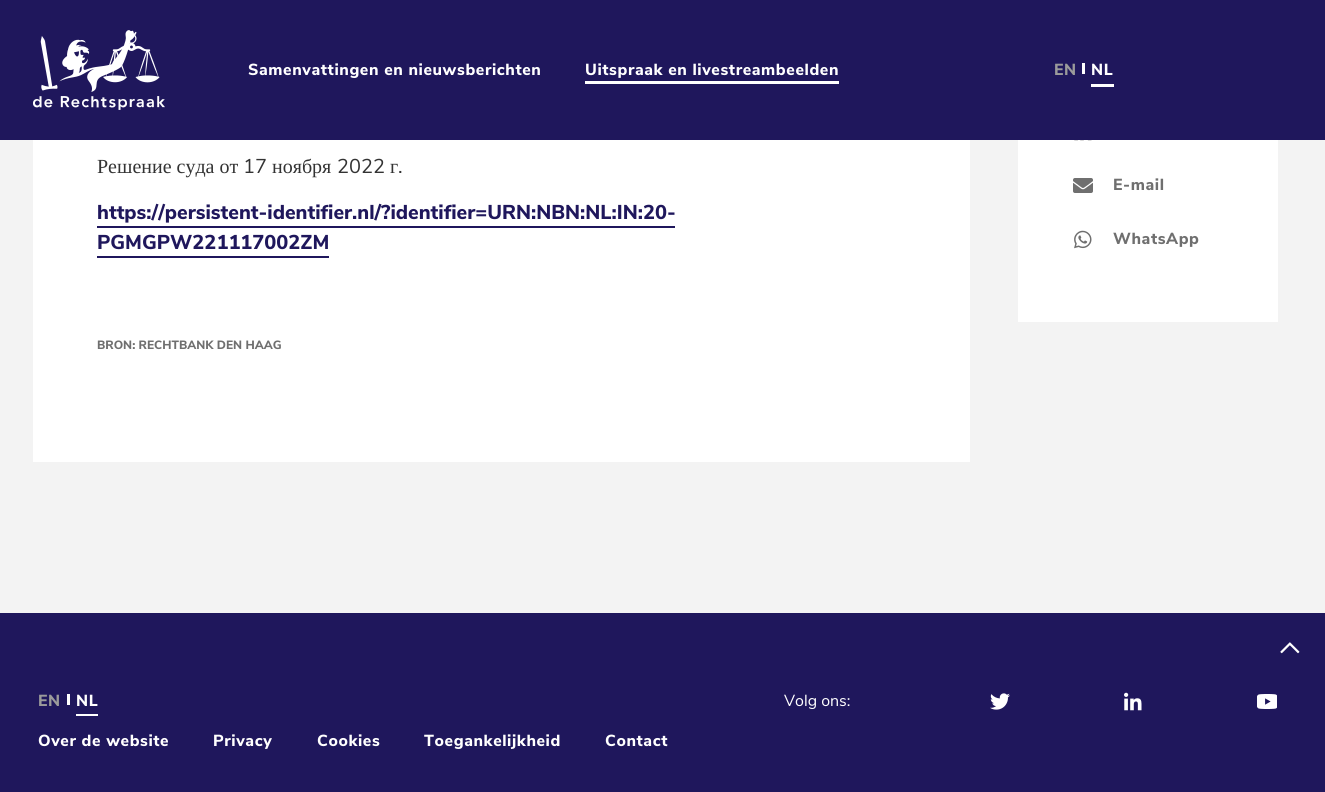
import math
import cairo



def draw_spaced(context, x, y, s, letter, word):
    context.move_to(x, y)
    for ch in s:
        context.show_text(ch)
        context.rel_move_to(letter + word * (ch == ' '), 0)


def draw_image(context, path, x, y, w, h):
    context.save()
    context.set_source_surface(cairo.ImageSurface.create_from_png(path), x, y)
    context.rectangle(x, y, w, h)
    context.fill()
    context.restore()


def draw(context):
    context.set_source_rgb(243 / 255, 243 / 255, 243 / 255)
    context.paint()
    context.set_source_rgb(31 / 255, 23 / 255, 92 / 255)
    context.rectangle(0, 0, 1325, 140)
    context.fill()
    draw_image(context, "images/1.png", 33, 30, 132, 80)
    context.set_source_rgb(1, 1, 1)
    context.rectangle(585, 81, 254, 3)
    context.fill()
    context.rectangle(1082, 63, 3, 11)
    context.fill()
    context.rectangle(1091, 84, 23, 3)
    context.fill()
    context.rectangle(33, 140, 937, 322)
    context.fill()
    context.set_source_rgb(31 / 255, 23 / 255, 92 / 255)
    context.rectangle(97, 226, 578, 2)
    context.fill()
    context.rectangle(97, 256, 232, 2)
    context.fill()
    context.set_source_rgb(1, 1, 1)
    context.rectangle(1018, 140, 260, 182)
    context.fill()
    draw_image(context, "images/2.png", 1074, 140, 18, 1)
    draw_image(context, "images/3.png", 1073, 178, 20, 15)
    draw_image(context, "images/4.png", 1074, 230, 18, 19)
    context.set_source_rgb(31 / 255, 23 / 255, 92 / 255)
    context.rectangle(0, 613, 1325, 179)
    context.fill()
    draw_image(context, "images/5.png", 1280, 642, 20, 12)
    context.set_source_rgb(1, 1, 1)
    context.rectangle(67, 694, 3, 11)
    context.fill()
    context.rectangle(76, 714, 22, 2)
    context.fill()
    draw_image(context, "images/6.png", 990, 693, 20, 17)
    draw_image(context, "images/7.png", 1124, 692, 18, 19)
    draw_image(context, "images/8.png", 1257, 694, 20, 15)
    context.select_font_face("Nunito Sans ExtraBold")
    context.set_font_size(16)
    draw_spaced(context, 248, 75, "Samenvattingen en nieuwsberichten", 0.6, 0)
    draw_spaced(context, 585, 75, "Uitspraak en livestreambeelden", 0.6, 0)
    context.set_source_rgb(155 / 255, 155 / 255, 155 / 255)
    draw_spaced(context, 1054, 75, "EN", 0.6, 0)
    context.set_source_rgb(1, 1, 1)
    draw_spaced(context, 1091, 75, "NL", 0.6, 0)
    context.select_font_face("Liberation Serif")
    context.set_font_size(20)
    context.set_source_rgb(51 / 255, 51 / 255, 51 / 255)
    context.move_to(97, 173)
    context.show_text("Решение суда от")
    context.select_font_face("Nunito Sans")
    context.move_to(243, 173)
    context.show_text("17")
    context.select_font_face("Liberation Serif")
    context.move_to(272, 173)
    context.show_text("ноября")
    context.select_font_face("Nunito Sans")
    context.move_to(337, 173)
    context.show_text("2022")
    context.select_font_face("Liberation Serif")
    context.move_to(390, 173)
    context.show_text("г")
    context.select_font_face("Nunito Sans")
    context.move_to(398, 173)
    context.show_text(".")
    context.select_font_face("Nunito Sans ExtraBold")
    context.set_source_rgb(31 / 255, 23 / 255, 92 / 255)
    context.move_to(97, 219)
    context.show_text("https://persistent-identifier.nl/?identifier=URN:NBN:NL:IN:20-")
    context.move_to(97, 249)
    context.show_text("PGMGPW221117002ZM")
    context.set_font_size(12)
    context.set_source_rgb(111 / 255, 111 / 255, 111 / 255)
    context.move_to(97, 349)
    context.show_text("BRON: RECHTBANK DEN HAAG")
    context.set_font_size(16)
    draw_spaced(context, 1113, 190, "E-mail", 0.6, 0)
    draw_spaced(context, 1113, 244, "WhatsApp", 0.6, 0)
    context.set_source_rgb(155 / 255, 155 / 255, 155 / 255)
    draw_spaced(context, 38, 706, "EN", 0.6, 0)
    context.set_source_rgb(1, 1, 1)
    draw_spaced(context, 76, 706, "NL", 0.6, 0)
    draw_spaced(context, 38, 746, "Over de website", 0.6, 0)
    draw_spaced(context, 213, 746, "Privacy", 0.6, 0)
    draw_spaced(context, 317, 746, "Cookies", 0.6, 0)
    draw_spaced(context, 424, 746, "Toegankelijkheid", 0.6, 0)
    draw_spaced(context, 605, 746, "Contact", 0.6, 0)
    context.select_font_face("Nunito Sans")
    context.move_to(784, 706)
    context.show_text("Volg ons:")


surface = cairo.ImageSurface(cairo.Format.RGB24, 1325, 792)
context = cairo.Context(surface)
options = cairo.FontOptions()
options.set_hint_metrics(cairo.HintMetrics.OFF)
options.set_hint_style(cairo.HintStyle.NONE)
context.set_font_options(options)
context.set_miter_limit(4)
draw(context)
surface.write_to_png("out.png")
